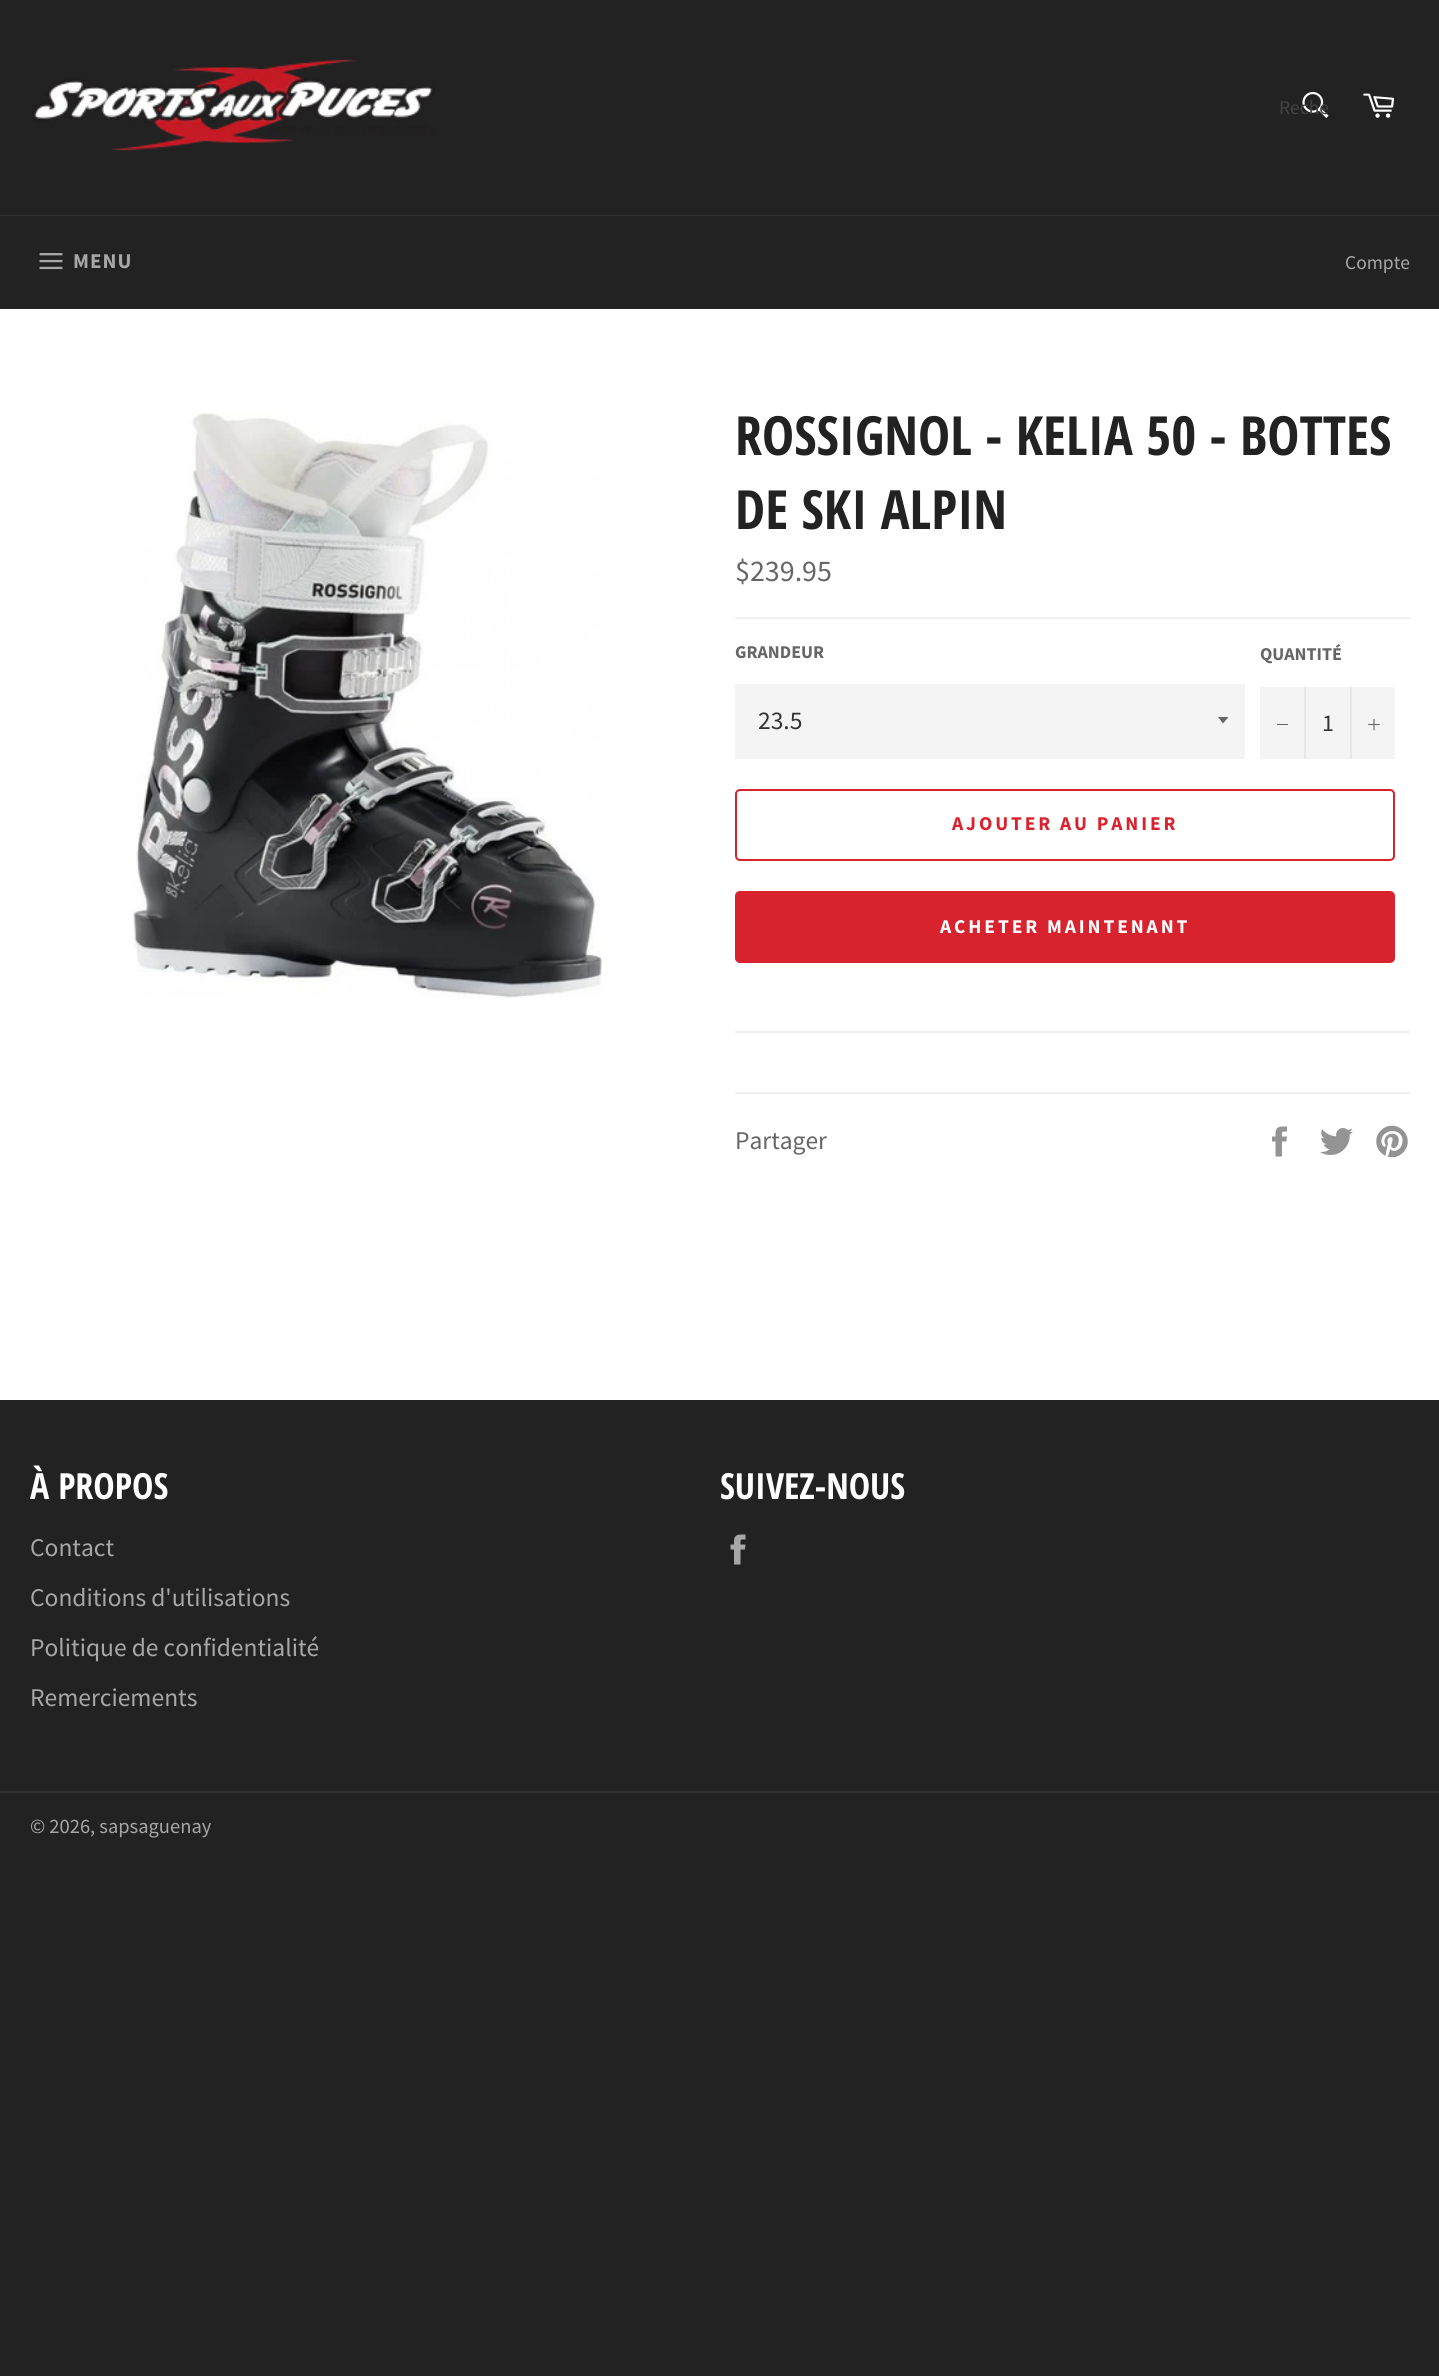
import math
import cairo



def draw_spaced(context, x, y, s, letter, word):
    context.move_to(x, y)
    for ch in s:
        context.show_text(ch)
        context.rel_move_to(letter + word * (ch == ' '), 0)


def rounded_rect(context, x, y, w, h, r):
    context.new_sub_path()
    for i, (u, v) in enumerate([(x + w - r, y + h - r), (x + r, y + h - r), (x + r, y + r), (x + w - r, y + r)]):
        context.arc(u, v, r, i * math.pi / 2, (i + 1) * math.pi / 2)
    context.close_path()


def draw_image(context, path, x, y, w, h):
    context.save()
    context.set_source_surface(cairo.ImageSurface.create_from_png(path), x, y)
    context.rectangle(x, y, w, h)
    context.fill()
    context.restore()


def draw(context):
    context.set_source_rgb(34 / 255, 34 / 255, 34 / 255)
    context.paint()
    draw_image(context, "images/1.png", 32, 59, 403, 92)
    draw_image(context, "images/2.png", 1302, 91, 27, 27)
    draw_image(context, "images/3.png", 1363, 93, 31, 25)
    context.set_source_rgb(47 / 255, 47 / 255, 47 / 255)
    context.rectangle(0, 215, 1439, 1)
    context.fill()
    draw_image(context, "images/4.png", 39, 253, 24, 17)
    context.set_source_rgb(1, 1, 1)
    context.rectangle(0, 309, 1439, 1091)
    context.fill()
    draw_image(context, "images/5.png", 132, 412, 471, 586)
    context.set_source_rgb(240 / 255, 240 / 255, 240 / 255)
    context.rectangle(735, 617, 675, 2)
    context.fill()
    context.set_source_rgb(244 / 255, 244 / 255, 244 / 255)
    context.rectangle(735, 684, 510, 75)
    context.fill()
    context.set_source_rgb(102 / 255, 102 / 255, 102 / 255)
    context.new_path()
    context.move_to(1218, 717)
    context.line_to(1223, 723.5)
    context.line_to(1228.5, 717)
    context.close_path()
    context.fill()
    context.set_source_rgb(244 / 255, 244 / 255, 244 / 255)
    context.rectangle(1260, 687, 135, 72)
    context.fill()
    context.set_source_rgb(231 / 255, 231 / 255, 231 / 255)
    context.rectangle(1304, 687, 2, 72)
    context.fill()
    context.set_source_rgb(102 / 255, 102 / 255, 102 / 255)
    context.rectangle(1277, 724, 11, 1)
    context.fill()
    context.set_source_rgb(231 / 255, 231 / 255, 231 / 255)
    context.rectangle(1350, 687, 2, 72)
    context.fill()
    draw_image(context, "images/6.png", 1368, 719, 12, 12)
    rounded_rect(context, 736, 790, 658, 70, 4)
    context.set_source_rgb(216 / 255, 35 / 255, 47 / 255)
    context.stroke()
    rounded_rect(context, 735, 891, 660, 72, 5)
    context.fill()
    context.set_source_rgb(240 / 255, 240 / 255, 240 / 255)
    context.rectangle(735, 1031, 675, 2)
    context.fill()
    context.rectangle(735, 1092, 675, 2)
    context.fill()
    draw_image(context, "images/7.png", 1272, 1126, 15, 31)
    draw_image(context, "images/8.png", 1320, 1128, 33, 27)
    draw_image(context, "images/9.png", 1376, 1125, 32, 33)
    draw_image(context, "images/10.png", 730, 1534, 16, 31)
    context.set_source_rgb(47 / 255, 47 / 255, 47 / 255)
    context.rectangle(0, 1791, 1439, 2)
    context.fill()
    context.save()
    context.rectangle(1280, 95, 48, 25)
    context.clip()
    context.select_font_face("Source Sans Pro")
    context.set_font_size(19.5)
    context.set_source_rgb(66 / 255, 66 / 255, 66 / 255)
    context.move_to(1279, 114)
    context.show_text("Reche")
    context.restore()
    context.select_font_face("Source Sans Pro", cairo.FontSlant.NORMAL, cairo.FontWeight.BOLD)
    context.set_font_size(21)
    context.set_source_rgb(167 / 255, 167 / 255, 167 / 255)
    draw_spaced(context, 73, 268, "MENU", 1, 0)
    context.select_font_face("Source Sans Pro")
    context.set_font_size(19.5)
    context.move_to(1345, 269)
    context.show_text("Compte")
    context.select_font_face("Open Sans Condensed", cairo.FontSlant.NORMAL, cairo.FontWeight.BOLD)
    context.set_font_size(54)
    context.set_source_rgb(34 / 255, 34 / 255, 34 / 255)
    context.move_to(735, 455)
    context.show_text("ROSSIGNOL - KELIA 50 - BOTTES")
    context.move_to(735, 529)
    context.show_text("DE SKI ALPIN")
    context.select_font_face("Source Sans Pro")
    context.set_font_size(30)
    context.set_source_rgb(102 / 255, 102 / 255, 102 / 255)
    context.move_to(735, 581)
    context.show_text("$239.95")
    context.select_font_face("Source Sans Pro", cairo.FontSlant.NORMAL, cairo.FontWeight.BOLD)
    context.set_font_size(18)
    context.move_to(735, 658)
    context.show_text("GRANDEUR")
    context.select_font_face("Source Sans Pro")
    context.set_font_size(25.5)
    context.set_source_rgb(51 / 255, 51 / 255, 51 / 255)
    context.move_to(758, 729)
    context.show_text("23.5")
    context.select_font_face("Source Sans Pro", cairo.FontSlant.NORMAL, cairo.FontWeight.BOLD)
    context.set_font_size(18)
    context.set_source_rgb(102 / 255, 102 / 255, 102 / 255)
    context.move_to(1260, 660)
    context.show_text("QUANTITÉ")
    context.select_font_face("Source Sans Pro")
    context.set_font_size(24)
    context.set_source_rgb(51 / 255, 51 / 255, 51 / 255)
    context.move_to(1322, 731)
    context.show_text("1")
    context.select_font_face("Source Sans Pro", cairo.FontSlant.NORMAL, cairo.FontWeight.BOLD)
    context.set_font_size(19.5)
    context.set_source_rgb(216 / 255, 35 / 255, 47 / 255)
    draw_spaced(context, 952, 830, "AJOUTER AU PANIER", 2.9, 0)
    context.set_source_rgb(1, 1, 1)
    draw_spaced(context, 940, 933, "ACHETER MAINTENANT", 2.9, 0)
    context.select_font_face("Source Sans Pro")
    context.set_font_size(25.5)
    context.set_source_rgb(102 / 255, 102 / 255, 102 / 255)
    context.move_to(735, 1149)
    context.show_text("Partager")
    context.select_font_face("Open Sans Condensed", cairo.FontSlant.NORMAL, cairo.FontWeight.BOLD)
    context.set_font_size(36)
    context.set_source_rgb(1, 1, 1)
    context.move_to(30, 1499)
    context.show_text("À PROPOS")
    context.select_font_face("Source Sans Pro")
    context.set_font_size(25.5)
    context.set_source_rgb(167 / 255, 167 / 255, 167 / 255)
    context.move_to(30, 1556)
    context.show_text("Contact")
    context.move_to(30, 1606)
    context.show_text("Conditions d'utilisations")
    context.move_to(30, 1656)
    context.show_text("Politique de confidentialité")
    context.move_to(30, 1706)
    context.show_text("Remerciements")
    context.select_font_face("Open Sans Condensed", cairo.FontSlant.NORMAL, cairo.FontWeight.BOLD)
    context.set_font_size(36)
    context.set_source_rgb(1, 1, 1)
    context.move_to(720, 1499)
    context.show_text("SUIVEZ-NOUS")
    context.select_font_face("Source Sans Pro")
    context.set_font_size(20.5)
    context.set_source_rgb(167 / 255, 167 / 255, 167 / 255)
    context.move_to(30, 1833)
    context.show_text("© 2026, sapsaguenay")


surface = cairo.ImageSurface(cairo.Format.RGB24, 1439, 2376)
context = cairo.Context(surface)
options = cairo.FontOptions()
options.set_hint_metrics(cairo.HintMetrics.OFF)
options.set_hint_style(cairo.HintStyle.NONE)
context.set_font_options(options)
context.set_miter_limit(4)
draw(context)
surface.write_to_png("out.png")
